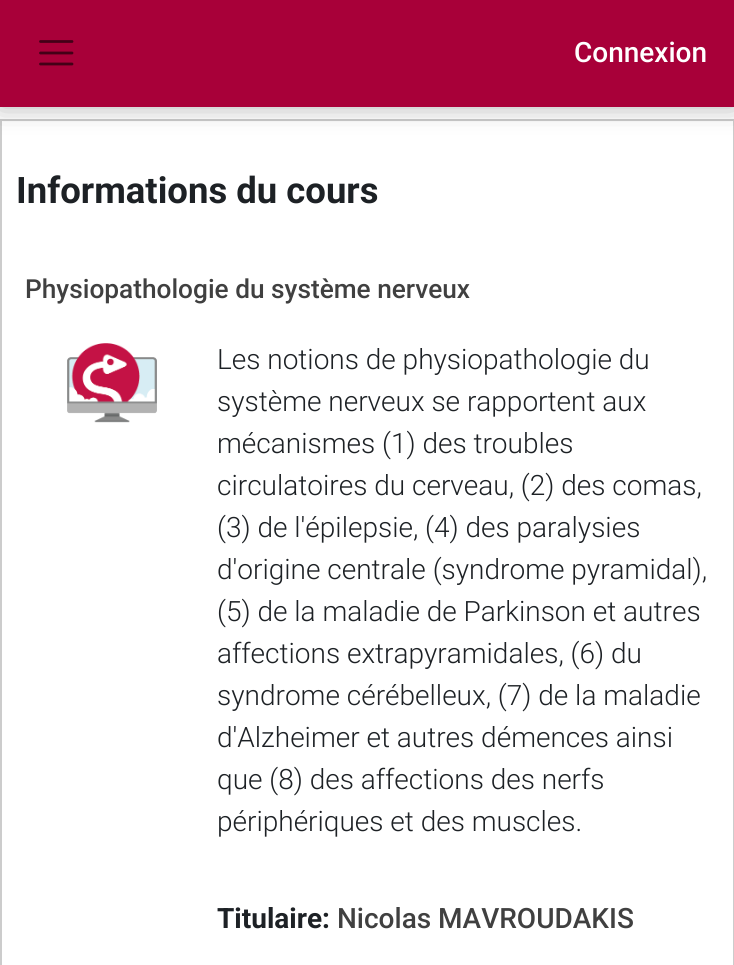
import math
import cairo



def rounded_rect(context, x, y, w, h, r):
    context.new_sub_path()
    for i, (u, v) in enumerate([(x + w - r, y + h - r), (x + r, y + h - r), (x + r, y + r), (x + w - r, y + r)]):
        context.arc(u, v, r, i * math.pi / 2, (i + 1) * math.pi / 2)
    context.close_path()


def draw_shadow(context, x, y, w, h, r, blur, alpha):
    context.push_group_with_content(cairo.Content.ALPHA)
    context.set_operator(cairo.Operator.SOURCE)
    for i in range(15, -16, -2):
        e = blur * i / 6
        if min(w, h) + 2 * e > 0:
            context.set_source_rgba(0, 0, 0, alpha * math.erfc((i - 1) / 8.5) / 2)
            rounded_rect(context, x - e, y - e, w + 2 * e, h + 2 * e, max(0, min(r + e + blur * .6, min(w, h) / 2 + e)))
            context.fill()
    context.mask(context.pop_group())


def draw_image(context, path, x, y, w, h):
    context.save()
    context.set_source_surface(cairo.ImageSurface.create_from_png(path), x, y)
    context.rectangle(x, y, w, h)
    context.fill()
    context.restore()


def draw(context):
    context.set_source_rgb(1, 1, 1)
    context.paint()
    context.rectangle(1, 120, 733, 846)
    context.set_source_rgb(204 / 255, 204 / 255, 204 / 255)
    context.stroke()
    context.set_source_rgb(0, 0, 0)
    draw_shadow(context, 0, 0, 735, 107, 0, 13, 0.3)
    context.set_source_rgb(168 / 255, 0, 57 / 255)
    context.rectangle(0, 0, 734, 107)
    context.fill()
    context.new_path()
    context.move_to(40.5, 41.5)
    context.line_to(72, 41.5)
    context.move_to(40.5, 53)
    context.line_to(72, 53)
    context.move_to(40.5, 64)
    context.line_to(72, 64)
    context.set_source_rgb(67 / 255, 0, 23 / 255)
    context.set_line_width(2.8)
    context.set_line_cap(cairo.LineCap.ROUND)
    context.stroke()
    draw_image(context, "images/1.png", 67, 343, 90, 80)
    context.select_font_face("Roboto Medium")
    context.set_font_size(28)
    context.set_source_rgb(1, 1, 1)
    context.move_to(574, 62)
    context.show_text("Connexion")
    context.select_font_face("Roboto", cairo.FontSlant.NORMAL, cairo.FontWeight.BOLD)
    context.set_font_size(36.5)
    context.set_source_rgb(29 / 255, 33 / 255, 37 / 255)
    context.move_to(16, 203)
    context.show_text("Informations du cours")
    context.select_font_face("Roboto Medium")
    context.set_font_size(26.25)
    context.set_source_rgb(64 / 255, 64 / 255, 64 / 255)
    context.move_to(25, 298)
    context.show_text("Physiopathologie du système nerveux")
    context.select_font_face("Roboto Light")
    context.set_font_size(28)
    context.set_source_rgb(29 / 255, 33 / 255, 37 / 255)
    context.move_to(217, 369)
    context.show_text("Les notions de physiopathologie du")
    context.move_to(217, 411)
    context.show_text("système nerveux se rapportent aux")
    context.move_to(217, 453)
    context.show_text("mécanismes (1) des troubles")
    context.move_to(217, 495)
    context.show_text("circulatoires du cerveau, (2) des comas,")
    context.move_to(217, 537)
    context.show_text("(3) de l'épilepsie, (4) des paralysies")
    context.move_to(217, 579)
    context.show_text("d'origine centrale (syndrome pyramidal),")
    context.move_to(217, 621)
    context.show_text("(5) de la maladie de Parkinson et autres")
    context.move_to(217, 663)
    context.show_text("affections extrapyramidales, (6) du")
    context.move_to(217, 705)
    context.show_text("syndrome cérébelleux, (7) de la maladie")
    context.move_to(217, 747)
    context.show_text("d'Alzheimer et autres démences ainsi")
    context.move_to(217, 789)
    context.show_text("que (8) des affections des nerfs")
    context.move_to(217, 831)
    context.show_text("périphériques et des muscles.")
    context.select_font_face("Roboto", cairo.FontSlant.NORMAL, cairo.FontWeight.BOLD)
    context.move_to(217, 928)
    context.show_text("Titulaire:")
    context.select_font_face("Roboto Medium")
    context.set_source_rgb(64 / 255, 64 / 255, 64 / 255)
    context.move_to(337, 928)
    context.show_text("Nicolas MAVROUDAKIS")


surface = cairo.ImageSurface(cairo.Format.RGB24, 734, 965)
context = cairo.Context(surface)
options = cairo.FontOptions()
options.set_hint_metrics(cairo.HintMetrics.OFF)
options.set_hint_style(cairo.HintStyle.NONE)
context.set_font_options(options)
context.set_miter_limit(4)
draw(context)
surface.write_to_png("out.png")
